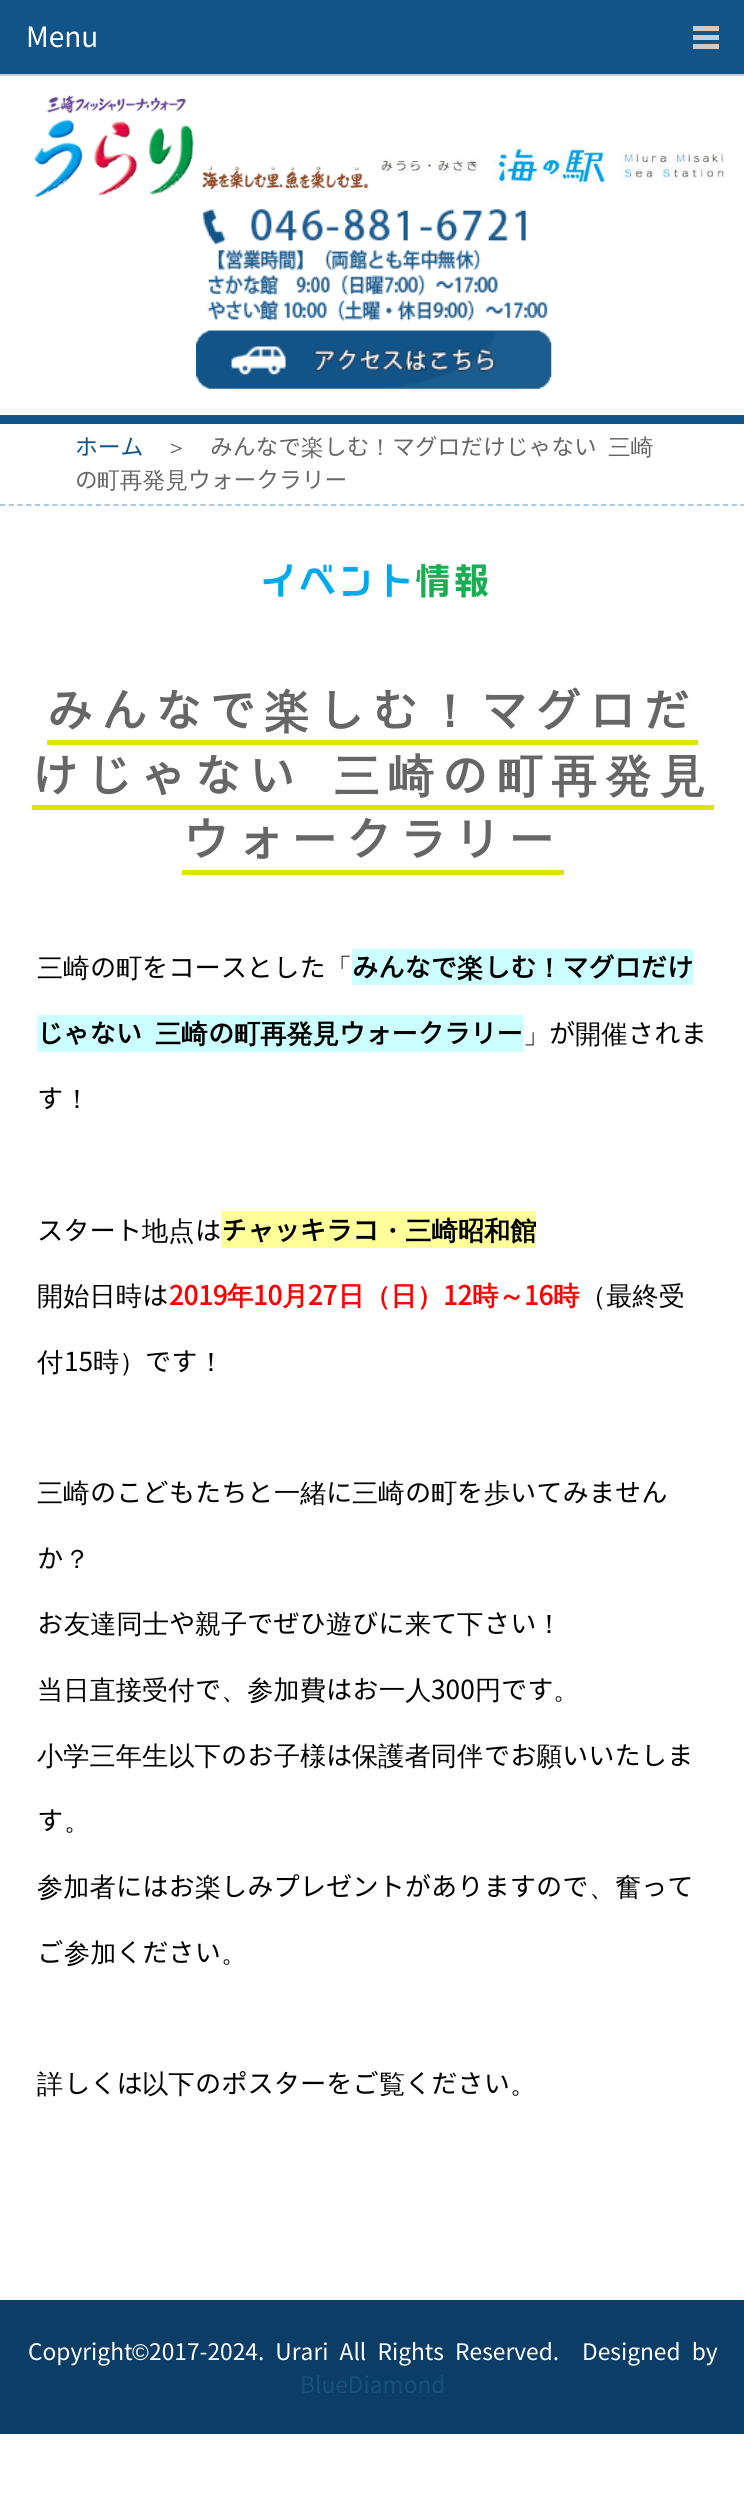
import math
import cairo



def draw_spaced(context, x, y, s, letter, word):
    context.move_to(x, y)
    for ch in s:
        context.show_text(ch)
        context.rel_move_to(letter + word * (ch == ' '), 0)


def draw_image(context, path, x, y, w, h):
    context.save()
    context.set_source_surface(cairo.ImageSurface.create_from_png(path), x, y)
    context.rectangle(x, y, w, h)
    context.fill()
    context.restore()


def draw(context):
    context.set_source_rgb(1, 1, 1)
    context.paint()
    context.set_source_rgb(18 / 255, 84 / 255, 136 / 255)
    context.rectangle(0, 0, 744, 74)
    context.fill()
    context.set_source_rgb(204 / 255, 204 / 255, 204 / 255)
    context.rectangle(0, 74, 744, 2)
    context.fill()
    context.rectangle(693, 26, 26, 5)
    context.fill()
    context.rectangle(693, 44, 26, 5)
    context.fill()
    context.rectangle(693, 35, 26, 5)
    context.fill()
    context.set_source_rgb(18 / 255, 84 / 255, 136 / 255)
    context.rectangle(0, 415, 744, 9)
    context.fill()
    draw_image(context, "images/1.png", 33, 95, 336, 102)
    draw_image(context, "images/2.png", 380, 145, 344, 42)
    draw_image(context, "images/3.png", 202, 209, 346, 112)
    draw_image(context, "images/4.png", 196, 330, 356, 60)
    context.new_path()
    context.move_to(0, 505)
    context.line_to(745.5, 505)
    context.set_source_rgb(159 / 255, 199 / 255, 230 / 255)
    context.set_line_width(1.8)
    context.set_dash([5.25, 3.46])
    context.stroke()
    draw_image(context, "images/5.png", 263, 563, 226, 35)
    context.set_source_rgb(220 / 255, 230 / 255, 0)
    context.rectangle(47, 740, 651, 5)
    context.fill()
    context.rectangle(32, 805, 682, 5)
    context.fill()
    context.rectangle(182, 870, 382, 5)
    context.fill()
    context.set_source_rgb(204 / 255, 1, 1)
    context.rectangle(352, 949, 341, 36)
    context.fill()
    context.rectangle(37, 1015, 486, 37)
    context.fill()
    context.set_source_rgb(1, 1, 153 / 255)
    context.rectangle(221, 1211, 315, 37)
    context.fill()
    context.set_source_rgb(11 / 255, 61 / 255, 103 / 255)
    context.rectangle(0, 2300, 744, 134)
    context.fill()
    context.select_font_face("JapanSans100")
    context.set_font_size(28)
    context.set_source_rgb(1, 1, 1)
    context.move_to(26, 47)
    context.show_text("Menu")
    context.set_font_size(22.75)
    context.set_source_rgb(18 / 255, 84 / 255, 136 / 255)
    context.move_to(75, 455)
    context.show_text("ホーム")
    context.select_font_face("WenQuanYi Zen Hei Medium")
    context.set_source_rgb(102 / 255, 102 / 255, 102 / 255)
    context.move_to(165, 455)
    context.show_text("＞")
    context.select_font_face("JapanSans100")
    context.move_to(210, 455)
    context.show_text("みんなで")
    context.select_font_face("WenQuanYi Zen Hei Medium")
    context.move_to(301, 455)
    context.show_text("楽")
    context.select_font_face("JapanSans100")
    context.move_to(324, 455)
    context.show_text("しむ")
    context.select_font_face("WenQuanYi Zen Hei Medium")
    context.move_to(369, 455)
    context.show_text("！")
    context.select_font_face("JapanSans100")
    context.move_to(392, 455)
    context.show_text("マグロだけじゃない")
    context.select_font_face("WenQuanYi Zen Hei Medium")
    context.move_to(608, 455)
    context.show_text("三崎")
    context.select_font_face("JapanSans100")
    context.move_to(75, 488)
    context.show_text("の")
    context.select_font_face("WenQuanYi Zen Hei Medium")
    context.move_to(97, 488)
    context.show_text("町再発見")
    context.select_font_face("JapanSans100")
    context.move_to(188, 488)
    context.show_text("ウォークラリー")
    context.select_font_face("JapanSans100", cairo.FontSlant.NORMAL, cairo.FontWeight.BOLD)
    context.set_font_size(45.5)
    draw_spaced(context, 47, 727, "みんなで", 8.75, 0)
    context.select_font_face("WenQuanYi Zen Hei", cairo.FontSlant.NORMAL, cairo.FontWeight.BOLD)
    draw_spaced(context, 264, 727, "楽", 8.75, 0)
    context.select_font_face("JapanSans100", cairo.FontSlant.NORMAL, cairo.FontWeight.BOLD)
    draw_spaced(context, 318, 727, "しむ", 8.75, 0)
    context.select_font_face("WenQuanYi Zen Hei", cairo.FontSlant.NORMAL, cairo.FontWeight.BOLD)
    draw_spaced(context, 427, 727, "！", 8.75, 0)
    context.select_font_face("JapanSans100", cairo.FontSlant.NORMAL, cairo.FontWeight.BOLD)
    draw_spaced(context, 481, 727, "マグロだ", 8.75, 0)
    draw_spaced(context, 32, 792, "けじゃない", 8.75, 0)
    context.select_font_face("WenQuanYi Zen Hei", cairo.FontSlant.NORMAL, cairo.FontWeight.BOLD)
    draw_spaced(context, 334, 792, "三崎", 8.75, 0)
    context.select_font_face("JapanSans100", cairo.FontSlant.NORMAL, cairo.FontWeight.BOLD)
    draw_spaced(context, 442, 792, "の", 8.75, 0)
    context.select_font_face("WenQuanYi Zen Hei", cairo.FontSlant.NORMAL, cairo.FontWeight.BOLD)
    draw_spaced(context, 497, 792, "町再発見", 8.75, 0)
    context.select_font_face("JapanSans100", cairo.FontSlant.NORMAL, cairo.FontWeight.BOLD)
    draw_spaced(context, 183, 856, "ウォークラリー", 8.75, 0)
    context.select_font_face("WenQuanYi Zen Hei Medium")
    context.set_font_size(26.25)
    context.set_source_rgb(0, 0, 0)
    context.move_to(37, 977)
    context.show_text("三崎")
    context.select_font_face("JapanSans100")
    context.move_to(90, 977)
    context.show_text("の")
    context.select_font_face("WenQuanYi Zen Hei Medium")
    context.move_to(116, 977)
    context.show_text("町")
    context.select_font_face("JapanSans100")
    context.move_to(142, 977)
    context.show_text("をコースとした")
    context.select_font_face("WenQuanYi Zen Hei Medium")
    context.move_to(326, 977)
    context.show_text("「")
    context.select_font_face("JapanSans100", cairo.FontSlant.NORMAL, cairo.FontWeight.BOLD)
    context.move_to(352, 977)
    context.show_text("みんなで")
    context.select_font_face("WenQuanYi Zen Hei", cairo.FontSlant.NORMAL, cairo.FontWeight.BOLD)
    context.move_to(457, 977)
    context.show_text("楽")
    context.select_font_face("JapanSans100", cairo.FontSlant.NORMAL, cairo.FontWeight.BOLD)
    context.move_to(484, 977)
    context.show_text("しむ")
    context.select_font_face("WenQuanYi Zen Hei", cairo.FontSlant.NORMAL, cairo.FontWeight.BOLD)
    context.move_to(536, 977)
    context.show_text("！")
    context.select_font_face("JapanSans100", cairo.FontSlant.NORMAL, cairo.FontWeight.BOLD)
    context.move_to(562, 977)
    context.show_text("マグロだけ")
    context.move_to(37, 1043)
    context.show_text("じゃない")
    context.select_font_face("WenQuanYi Zen Hei", cairo.FontSlant.NORMAL, cairo.FontWeight.BOLD)
    context.move_to(155, 1043)
    context.show_text("三崎")
    context.select_font_face("JapanSans100", cairo.FontSlant.NORMAL, cairo.FontWeight.BOLD)
    context.move_to(208, 1043)
    context.show_text("の")
    context.select_font_face("WenQuanYi Zen Hei", cairo.FontSlant.NORMAL, cairo.FontWeight.BOLD)
    context.move_to(234, 1043)
    context.show_text("町再発見")
    context.select_font_face("JapanSans100", cairo.FontSlant.NORMAL, cairo.FontWeight.BOLD)
    context.move_to(339, 1043)
    context.show_text("ウォークラリー")
    context.select_font_face("WenQuanYi Zen Hei Medium")
    context.move_to(523, 1043)
    context.show_text("」")
    context.select_font_face("JapanSans100")
    context.move_to(549, 1043)
    context.show_text("が")
    context.select_font_face("WenQuanYi Zen Hei Medium")
    context.move_to(575, 1043)
    context.show_text("開催")
    context.select_font_face("JapanSans100")
    context.move_to(628, 1043)
    context.show_text("されま")
    context.move_to(37, 1108)
    context.show_text("す")
    context.select_font_face("WenQuanYi Zen Hei Medium")
    context.move_to(64, 1108)
    context.show_text("！")
    context.select_font_face("JapanSans100")
    context.move_to(37, 1240)
    context.show_text("スタート")
    context.select_font_face("WenQuanYi Zen Hei Medium")
    context.move_to(142, 1240)
    context.show_text("地点")
    context.select_font_face("JapanSans100")
    context.move_to(195, 1240)
    context.show_text("は")
    context.select_font_face("JapanSans100", cairo.FontSlant.NORMAL, cairo.FontWeight.BOLD)
    context.move_to(221, 1240)
    context.show_text("チャッキラコ")
    context.select_font_face("WenQuanYi Zen Hei", cairo.FontSlant.NORMAL, cairo.FontWeight.BOLD)
    context.move_to(379, 1240)
    context.show_text("・三崎昭和館")
    context.select_font_face("WenQuanYi Zen Hei Medium")
    context.move_to(37, 1305)
    context.show_text("開始日時")
    context.select_font_face("JapanSans100")
    context.move_to(142, 1305)
    context.show_text("は")
    context.select_font_face("JapanSans100", cairo.FontSlant.NORMAL, cairo.FontWeight.BOLD)
    context.set_source_rgb(1, 0, 0)
    context.move_to(169, 1305)
    context.show_text("2019")
    context.select_font_face("WenQuanYi Zen Hei", cairo.FontSlant.NORMAL, cairo.FontWeight.BOLD)
    context.move_to(227, 1305)
    context.show_text("年")
    context.select_font_face("JapanSans100", cairo.FontSlant.NORMAL, cairo.FontWeight.BOLD)
    context.move_to(253, 1305)
    context.show_text("10")
    context.select_font_face("WenQuanYi Zen Hei", cairo.FontSlant.NORMAL, cairo.FontWeight.BOLD)
    context.move_to(282, 1305)
    context.show_text("月")
    context.select_font_face("JapanSans100", cairo.FontSlant.NORMAL, cairo.FontWeight.BOLD)
    context.move_to(308, 1305)
    context.show_text("27")
    context.select_font_face("WenQuanYi Zen Hei", cairo.FontSlant.NORMAL, cairo.FontWeight.BOLD)
    context.move_to(338, 1305)
    context.show_text("日（日）")
    context.select_font_face("JapanSans100", cairo.FontSlant.NORMAL, cairo.FontWeight.BOLD)
    context.move_to(443, 1305)
    context.show_text("12")
    context.select_font_face("WenQuanYi Zen Hei", cairo.FontSlant.NORMAL, cairo.FontWeight.BOLD)
    context.move_to(472, 1305)
    context.show_text("時～")
    context.select_font_face("JapanSans100", cairo.FontSlant.NORMAL, cairo.FontWeight.BOLD)
    context.move_to(524, 1305)
    context.show_text("16")
    context.select_font_face("WenQuanYi Zen Hei", cairo.FontSlant.NORMAL, cairo.FontWeight.BOLD)
    context.move_to(553, 1305)
    context.show_text("時")
    context.select_font_face("WenQuanYi Zen Hei Medium")
    context.set_source_rgb(0, 0, 0)
    context.move_to(580, 1305)
    context.show_text("（最終受")
    context.move_to(37, 1371)
    context.show_text("付")
    context.select_font_face("JapanSans100")
    context.move_to(64, 1371)
    context.show_text("15")
    context.select_font_face("WenQuanYi Zen Hei Medium")
    context.move_to(93, 1371)
    context.show_text("時）")
    context.select_font_face("JapanSans100")
    context.move_to(145, 1371)
    context.show_text("です")
    context.select_font_face("WenQuanYi Zen Hei Medium")
    context.move_to(198, 1371)
    context.show_text("！")
    context.move_to(37, 1502)
    context.show_text("三崎")
    context.select_font_face("JapanSans100")
    context.move_to(90, 1502)
    context.show_text("のこどもたちと")
    context.select_font_face("WenQuanYi Zen Hei Medium")
    context.move_to(274, 1502)
    context.show_text("一緒")
    context.select_font_face("JapanSans100")
    context.move_to(326, 1502)
    context.show_text("に")
    context.select_font_face("WenQuanYi Zen Hei Medium")
    context.move_to(352, 1502)
    context.show_text("三崎")
    context.select_font_face("JapanSans100")
    context.move_to(405, 1502)
    context.show_text("の")
    context.select_font_face("WenQuanYi Zen Hei Medium")
    context.move_to(431, 1502)
    context.show_text("町")
    context.select_font_face("JapanSans100")
    context.move_to(457, 1502)
    context.show_text("を")
    context.select_font_face("WenQuanYi Zen Hei Medium")
    context.move_to(484, 1502)
    context.show_text("歩")
    context.select_font_face("JapanSans100")
    context.move_to(510, 1502)
    context.show_text("いてみません")
    context.move_to(37, 1568)
    context.show_text("か")
    context.select_font_face("WenQuanYi Zen Hei Medium")
    context.move_to(64, 1568)
    context.show_text("？")
    context.select_font_face("JapanSans100")
    context.move_to(37, 1633)
    context.show_text("お")
    context.select_font_face("WenQuanYi Zen Hei Medium")
    context.move_to(64, 1633)
    context.show_text("友達同士")
    context.select_font_face("JapanSans100")
    context.move_to(169, 1633)
    context.show_text("や")
    context.select_font_face("WenQuanYi Zen Hei Medium")
    context.move_to(195, 1633)
    context.show_text("親子")
    context.select_font_face("JapanSans100")
    context.move_to(247, 1633)
    context.show_text("でぜひ")
    context.select_font_face("WenQuanYi Zen Hei Medium")
    context.move_to(326, 1633)
    context.show_text("遊")
    context.select_font_face("JapanSans100")
    context.move_to(352, 1633)
    context.show_text("びに")
    context.select_font_face("WenQuanYi Zen Hei Medium")
    context.move_to(405, 1633)
    context.show_text("来")
    context.select_font_face("JapanSans100")
    context.move_to(431, 1633)
    context.show_text("て")
    context.select_font_face("WenQuanYi Zen Hei Medium")
    context.move_to(457, 1633)
    context.show_text("下")
    context.select_font_face("JapanSans100")
    context.move_to(484, 1633)
    context.show_text("さい")
    context.select_font_face("WenQuanYi Zen Hei Medium")
    context.move_to(536, 1633)
    context.show_text("！")
    context.move_to(37, 1699)
    context.show_text("当日直接受付")
    context.select_font_face("JapanSans100")
    context.move_to(195, 1699)
    context.show_text("で")
    context.select_font_face("WenQuanYi Zen Hei Medium")
    context.move_to(221, 1699)
    context.show_text("、参加費")
    context.select_font_face("JapanSans100")
    context.move_to(326, 1699)
    context.show_text("はお")
    context.select_font_face("WenQuanYi Zen Hei Medium")
    context.move_to(379, 1699)
    context.show_text("一人")
    context.select_font_face("JapanSans100")
    context.move_to(431, 1699)
    context.show_text("300")
    context.select_font_face("WenQuanYi Zen Hei Medium")
    context.move_to(475, 1699)
    context.show_text("円")
    context.select_font_face("JapanSans100")
    context.move_to(501, 1699)
    context.show_text("です")
    context.select_font_face("WenQuanYi Zen Hei Medium")
    context.move_to(553, 1699)
    context.show_text("。")
    context.move_to(37, 1765)
    context.show_text("小学三年生以下")
    context.select_font_face("JapanSans100")
    context.move_to(221, 1765)
    context.show_text("のお")
    context.select_font_face("WenQuanYi Zen Hei Medium")
    context.move_to(274, 1765)
    context.show_text("子様")
    context.select_font_face("JapanSans100")
    context.move_to(326, 1765)
    context.show_text("は")
    context.select_font_face("WenQuanYi Zen Hei Medium")
    context.move_to(352, 1765)
    context.show_text("保護者同伴")
    context.select_font_face("JapanSans100")
    context.move_to(484, 1765)
    context.show_text("でお")
    context.select_font_face("WenQuanYi Zen Hei Medium")
    context.move_to(536, 1765)
    context.show_text("願")
    context.select_font_face("JapanSans100")
    context.move_to(562, 1765)
    context.show_text("いいたしま")
    context.move_to(37, 1830)
    context.show_text("す")
    context.select_font_face("WenQuanYi Zen Hei Medium")
    context.move_to(64, 1830)
    context.show_text("。")
    context.move_to(37, 1896)
    context.show_text("参加者")
    context.select_font_face("JapanSans100")
    context.move_to(116, 1896)
    context.show_text("にはお")
    context.select_font_face("WenQuanYi Zen Hei Medium")
    context.move_to(195, 1896)
    context.show_text("楽")
    context.select_font_face("JapanSans100")
    context.move_to(221, 1896)
    context.show_text("しみプレゼントがありますので")
    context.select_font_face("WenQuanYi Zen Hei Medium")
    context.move_to(589, 1896)
    context.show_text("、奮")
    context.select_font_face("JapanSans100")
    context.move_to(641, 1896)
    context.show_text("って")
    context.move_to(37, 1962)
    context.show_text("ご")
    context.select_font_face("WenQuanYi Zen Hei Medium")
    context.move_to(64, 1962)
    context.show_text("参加")
    context.select_font_face("JapanSans100")
    context.move_to(116, 1962)
    context.show_text("ください")
    context.select_font_face("WenQuanYi Zen Hei Medium")
    context.move_to(221, 1962)
    context.show_text("。")
    context.move_to(37, 2093)
    context.show_text("詳")
    context.select_font_face("JapanSans100")
    context.move_to(64, 2093)
    context.show_text("しくは")
    context.select_font_face("WenQuanYi Zen Hei Medium")
    context.move_to(142, 2093)
    context.show_text("以下")
    context.select_font_face("JapanSans100")
    context.move_to(195, 2093)
    context.show_text("のポスターをご")
    context.select_font_face("WenQuanYi Zen Hei Medium")
    context.move_to(379, 2093)
    context.show_text("覧")
    context.select_font_face("JapanSans100")
    context.move_to(405, 2093)
    context.show_text("ください")
    context.select_font_face("WenQuanYi Zen Hei Medium")
    context.move_to(510, 2093)
    context.show_text("。")
    context.select_font_face("JapanSans100")
    context.set_font_size(22.75)
    context.set_source_rgb(1, 1, 1)
    context.move_to(28, 2360)
    context.show_text("Copyright")
    context.select_font_face("Liberation Sans")
    context.move_to(132, 2360)
    context.show_text("©")
    context.select_font_face("JapanSans100")
    context.move_to(149, 2360)
    context.show_text("2017-2024. Urari All Rights Reserved.")
    context.move_to(582, 2360)
    context.show_text("Designed by")
    context.set_source_rgb(23 / 255, 81 / 255, 120 / 255)
    context.move_to(300, 2393)
    context.show_text("BlueDiamond")


surface = cairo.ImageSurface(cairo.Format.RGB24, 744, 2514)
context = cairo.Context(surface)
options = cairo.FontOptions()
options.set_hint_metrics(cairo.HintMetrics.OFF)
options.set_hint_style(cairo.HintStyle.NONE)
context.set_font_options(options)
context.set_miter_limit(4)
draw(context)
surface.write_to_png("out.png")
